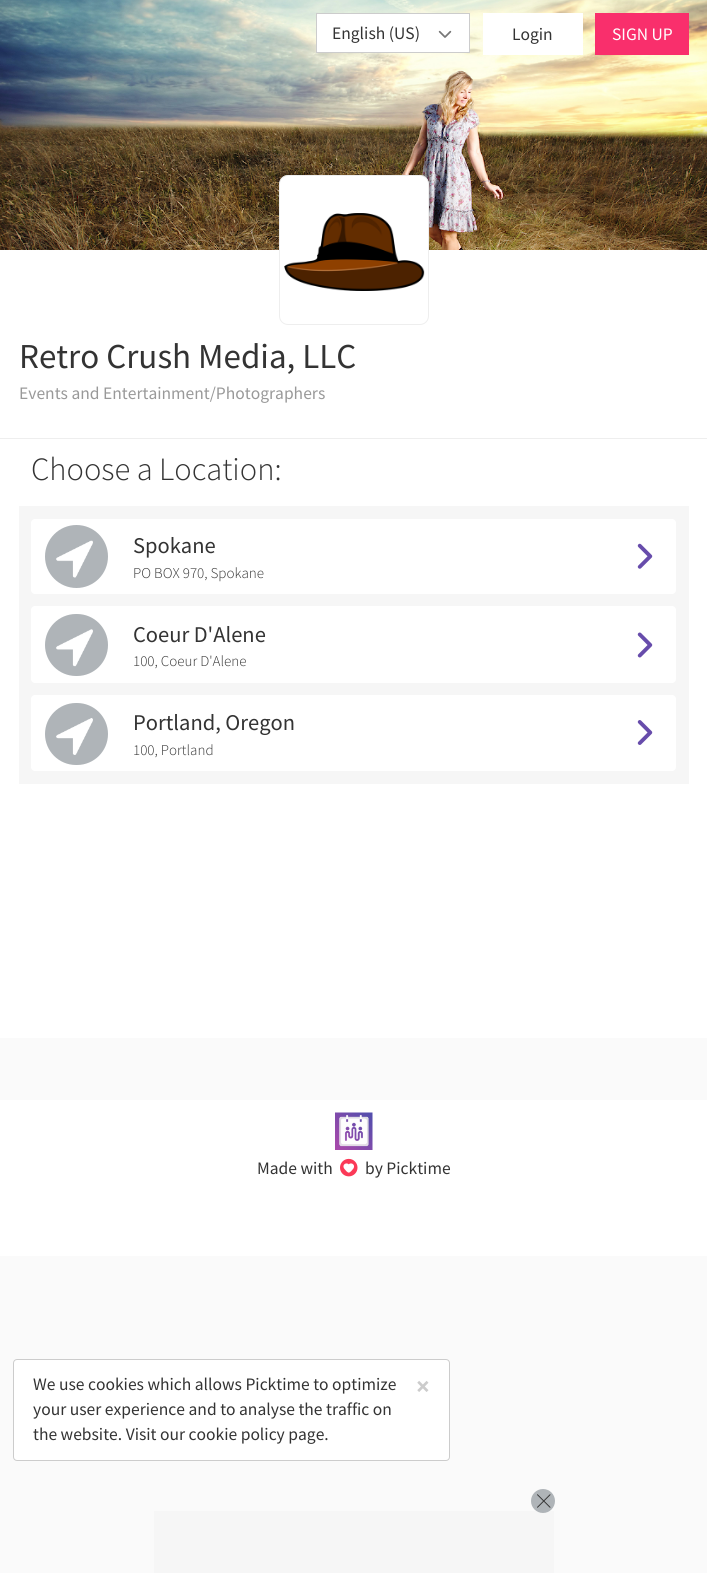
import math
import cairo



def rounded_rect(context, x, y, w, h, r):
    context.new_sub_path()
    for i, (u, v) in enumerate([(x + w - r, y + h - r), (x + r, y + h - r), (x + r, y + r), (x + w - r, y + r)]):
        context.arc(u, v, r, i * math.pi / 2, (i + 1) * math.pi / 2)
    context.close_path()


def draw_image(context, path, x, y, w, h):
    context.save()
    context.set_source_surface(cairo.ImageSurface.create_from_png(path), x, y)
    context.rectangle(x, y, w, h)
    context.fill()
    context.restore()


def draw(context):
    context.set_source_rgb(250 / 255, 250 / 255, 250 / 255)
    context.paint()
    draw_image(context, "images/1.png", 0, 0, 707, 250)
    context.set_source_rgb(1, 1, 1)
    rounded_rect(context, 316, 13, 154, 40, 4)
    context.fill()
    context.rectangle(316.5, 13.5, 153, 39)
    context.set_source_rgb(204 / 255, 204 / 255, 204 / 255)
    context.set_line_width(1)
    context.stroke()
    draw_image(context, "images/2.png", 438, 30, 14, 8)
    context.set_source_rgb(1, 1, 1)
    context.rectangle(483, 13, 100, 42)
    context.fill()
    context.set_source_rgb(249 / 255, 47 / 255, 108 / 255)
    context.rectangle(595, 13, 94, 42)
    context.fill()
    context.set_source_rgb(1, 1, 1)
    context.rectangle(0, 250, 707, 788)
    context.fill()
    rounded_rect(context, 279.5, 175.5, 149, 149, 8.5)
    context.fill_preserve()
    context.set_source_rgb(238 / 255, 238 / 255, 238 / 255)
    context.stroke()
    draw_image(context, "images/3.png", 284, 213, 141, 78)
    context.rectangle(0, 438, 707, 1)
    context.fill()
    context.set_source_rgb(246 / 255, 246 / 255, 246 / 255)
    context.rectangle(19, 506, 670, 278)
    context.fill()
    context.set_source_rgb(1, 1, 1)
    rounded_rect(context, 31, 519, 645, 75, 4)
    context.fill()
    context.set_source_rgb(175 / 255, 180 / 255, 184 / 255)
    context.arc(76.5, 556.5, 31.5, 0, 2 * math.pi)
    context.fill()
    draw_image(context, "images/4.png", 56, 540, 37, 38)
    draw_image(context, "images/5.png", 637, 543, 16, 26)
    context.set_source_rgb(1, 1, 1)
    rounded_rect(context, 31, 606, 645, 77, 4)
    context.fill()
    context.set_source_rgb(175 / 255, 180 / 255, 184 / 255)
    rounded_rect(context, 45, 614, 63, 62, 31)
    context.fill()
    draw_image(context, "images/6.png", 56, 629, 37, 38)
    draw_image(context, "images/7.png", 637, 632, 16, 26)
    context.set_source_rgb(1, 1, 1)
    rounded_rect(context, 31, 695, 645, 76, 4)
    context.fill()
    context.set_source_rgb(175 / 255, 180 / 255, 184 / 255)
    rounded_rect(context, 45, 703, 63, 62, 31)
    context.fill()
    draw_image(context, "images/8.png", 56, 718, 37, 37)
    draw_image(context, "images/9.png", 637, 720, 16, 25)
    context.set_source_rgb(1, 1, 1)
    context.rectangle(0, 1100, 707, 156)
    context.fill()
    draw_image(context, "images/10.png", 335, 1112, 38, 38)
    draw_image(context, "images/11.png", 340, 1158, 18, 19)
    rounded_rect(context, 13.5, 1359.5, 436, 101, 3.5)
    context.fill_preserve()
    context.set_source_rgb(204 / 255, 204 / 255, 204 / 255)
    context.stroke()
    context.set_source_rgb(246 / 255, 246 / 255, 246 / 255)
    context.rectangle(154, 1511, 400, 62)
    context.fill()
    context.set_source_rgb(175 / 255, 180 / 255, 184 / 255)
    context.arc(543, 1501, 12, 0, 2 * math.pi)
    context.fill()
    draw_image(context, "images/12.png", 537, 1494, 14, 14)
    context.select_font_face("Source Sans Pro")
    context.set_font_size(17.5)
    context.set_source_rgb(51 / 255, 51 / 255, 51 / 255)
    context.move_to(332, 39)
    context.show_text("English (US)")
    context.move_to(512, 40)
    context.show_text("Login")
    context.set_source_rgb(1, 1, 1)
    context.move_to(612, 40)
    context.show_text("SIGN UP")
    context.set_font_size(35)
    context.set_source_rgb(51 / 255, 51 / 255, 51 / 255)
    context.move_to(19, 368)
    context.show_text("Retro Crush Media, LLC")
    context.set_font_size(17.5)
    context.set_source_rgb(153 / 255, 153 / 255, 153 / 255)
    context.move_to(19, 399)
    context.show_text("Events and Entertainment/Photographers")
    context.select_font_face("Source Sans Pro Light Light")
    context.set_font_size(32.5)
    context.set_source_rgb(51 / 255, 51 / 255, 51 / 255)
    context.move_to(31, 480)
    context.show_text("Choose a Location:")
    context.select_font_face("Source Sans Pro")
    context.set_font_size(22.5)
    context.move_to(133, 553)
    context.show_text("Spokane")
    context.select_font_face("Source Sans Pro Light Light")
    context.set_font_size(15)
    context.move_to(133, 578)
    context.show_text("PO BOX 970, Spokane")
    context.select_font_face("Source Sans Pro")
    context.set_font_size(22.5)
    context.move_to(133, 642)
    context.show_text("Coeur D'Alene")
    context.select_font_face("Source Sans Pro Light Light")
    context.set_font_size(15)
    context.move_to(133, 666)
    context.show_text("100, Coeur D'Alene")
    context.select_font_face("Source Sans Pro")
    context.set_font_size(22.5)
    context.move_to(133, 730)
    context.show_text("Portland, Oregon")
    context.select_font_face("Source Sans Pro Light Light")
    context.set_font_size(15)
    context.move_to(133, 755)
    context.show_text("100, Portland")
    context.select_font_face("Source Sans Pro")
    context.set_font_size(17.5)
    context.move_to(257, 1174)
    context.show_text("Made with")
    context.move_to(365, 1174)
    context.show_text("by Picktime")
    context.move_to(33, 1390)
    context.show_text("We use cookies which allows Picktime to optimize")
    context.select_font_face("Source Sans Pro", cairo.FontSlant.NORMAL, cairo.FontWeight.BOLD)
    context.set_font_size(26)
    context.set_source_rgb(204 / 255, 204 / 255, 204 / 255)
    context.move_to(416, 1395)
    context.show_text("×")
    context.select_font_face("Source Sans Pro")
    context.set_font_size(17.5)
    context.set_source_rgb(51 / 255, 51 / 255, 51 / 255)
    context.move_to(33, 1415)
    context.show_text("your user experience and to analyse the traffic on")
    context.move_to(33, 1440)
    context.show_text("the website. Visit our cookie policy page.")


surface = cairo.ImageSurface(cairo.Format.RGB24, 707, 1573)
context = cairo.Context(surface)
options = cairo.FontOptions()
options.set_hint_metrics(cairo.HintMetrics.OFF)
options.set_hint_style(cairo.HintStyle.NONE)
context.set_font_options(options)
context.set_miter_limit(4)
draw(context)
surface.write_to_png("out.png")
